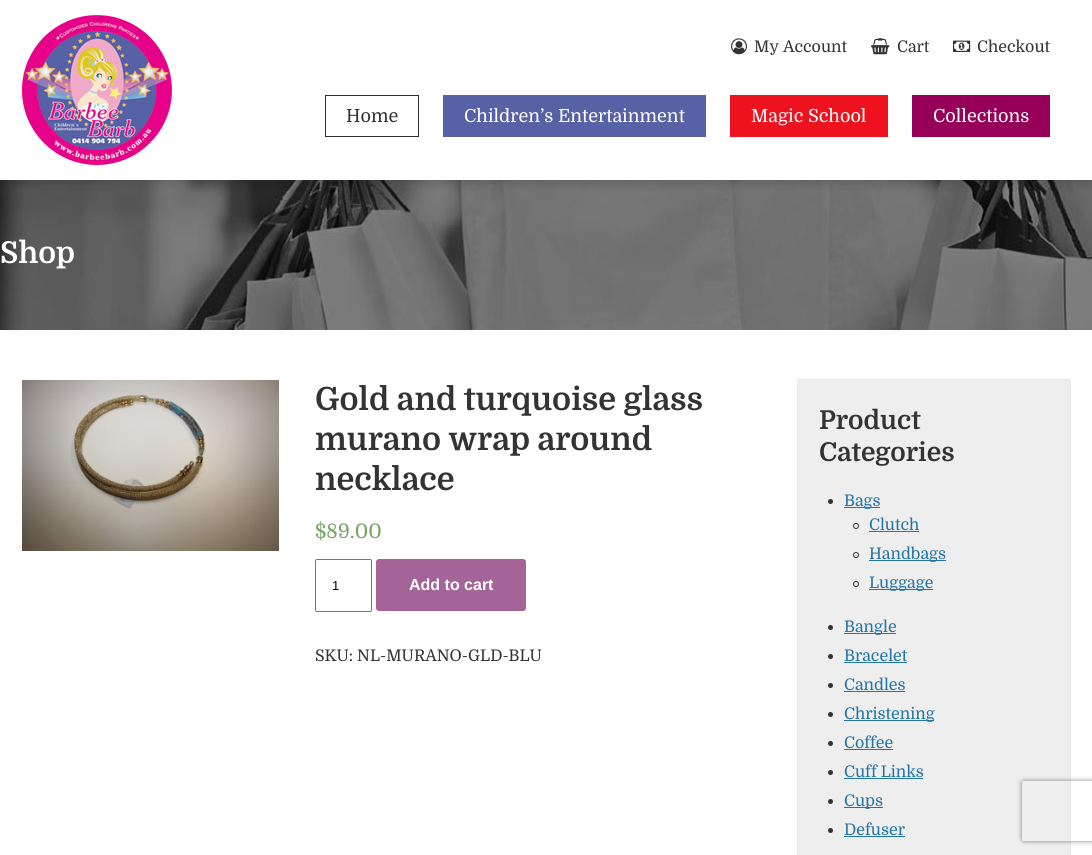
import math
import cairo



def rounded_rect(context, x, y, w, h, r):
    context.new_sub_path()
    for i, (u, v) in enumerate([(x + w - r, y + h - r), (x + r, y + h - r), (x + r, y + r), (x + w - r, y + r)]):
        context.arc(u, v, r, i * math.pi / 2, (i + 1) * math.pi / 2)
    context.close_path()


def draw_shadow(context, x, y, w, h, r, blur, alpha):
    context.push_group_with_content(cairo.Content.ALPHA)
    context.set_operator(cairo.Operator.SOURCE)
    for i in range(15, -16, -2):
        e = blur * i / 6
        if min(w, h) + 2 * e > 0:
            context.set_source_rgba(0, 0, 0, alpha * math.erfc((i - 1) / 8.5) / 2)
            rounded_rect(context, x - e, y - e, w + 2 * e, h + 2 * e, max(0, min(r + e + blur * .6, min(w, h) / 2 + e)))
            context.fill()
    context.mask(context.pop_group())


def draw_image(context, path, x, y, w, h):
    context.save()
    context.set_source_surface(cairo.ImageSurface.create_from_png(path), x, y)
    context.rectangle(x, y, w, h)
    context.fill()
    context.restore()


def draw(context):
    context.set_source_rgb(1, 1, 1)
    context.paint()
    draw_image(context, "images/5.png", 0, 180, 1092, 150)
    context.save()
    context.rectangle(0, 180, 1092, 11)
    context.clip()
    context.set_source_rgb(0, 0, 0)
    draw_shadow(context, 0, 0, 1092, 180, 0, 7.5, 0.25)
    context.restore()
    draw_image(context, "images/1.png", 22, 15, 150, 150)
    draw_image(context, "images/2.png", 731, 38, 16, 17)
    draw_image(context, "images/3.png", 871, 38, 19, 17)
    draw_image(context, "images/4.png", 953, 40, 18, 12)
    context.rectangle(325.5, 95.5, 93, 41)
    context.set_source_rgb(51 / 255, 51 / 255, 51 / 255)
    context.set_line_width(1)
    context.stroke()
    context.set_source_rgb(86 / 255, 97 / 255, 166 / 255)
    context.rectangle(443, 95, 263, 42)
    context.fill()
    context.set_source_rgb(238 / 255, 18 / 255, 31 / 255)
    context.rectangle(730, 95, 158, 42)
    context.fill()
    context.set_source_rgb(151 / 255, 0, 89 / 255)
    context.rectangle(912, 95, 138, 42)
    context.fill()
    draw_image(context, "images/6.png", 22, 380, 257, 171)
    rounded_rect(context, 315.5, 559.5, 56, 52, 1.5)
    context.set_source_rgb(118 / 255, 118 / 255, 118 / 255)
    context.stroke()
    context.set_source_rgb(164 / 255, 100 / 255, 151 / 255)
    rounded_rect(context, 376, 559, 150, 52, 3)
    context.fill()
    context.set_source_rgb(0, 0, 0)
    draw_shadow(context, 798, 380, 272, 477, 0, 0.5, 0.4)
    context.set_source_rgb(238 / 255, 238 / 255, 238 / 255)
    context.rectangle(798, 380, 272, 475)
    context.fill()
    context.set_source_rgb(51 / 255, 51 / 255, 51 / 255)
    context.arc(830.5, 501.5, 2.5, 0, 2 * math.pi)
    context.fill()
    context.set_source_rgb(33 / 255, 116 / 255, 164 / 255)
    context.rectangle(844, 507, 36, 1)
    context.fill()
    context.arc(856, 526, 2.5, 0, 2 * math.pi)
    context.set_source_rgb(51 / 255, 51 / 255, 51 / 255)
    context.stroke()
    context.set_source_rgb(33 / 255, 116 / 255, 164 / 255)
    context.rectangle(869, 531, 50, 1)
    context.fill()
    context.arc(856, 555, 2.5, 0, 2 * math.pi)
    context.set_source_rgb(51 / 255, 51 / 255, 51 / 255)
    context.stroke()
    context.set_source_rgb(33 / 255, 116 / 255, 164 / 255)
    context.rectangle(869, 560, 77, 1)
    context.fill()
    context.arc(856, 584, 2.5, 0, 2 * math.pi)
    context.set_source_rgb(51 / 255, 51 / 255, 51 / 255)
    context.stroke()
    context.set_source_rgb(33 / 255, 116 / 255, 164 / 255)
    context.rectangle(869, 589, 64, 1)
    context.fill()
    context.set_source_rgb(51 / 255, 51 / 255, 51 / 255)
    context.arc(830.5, 627.5, 2.5, 0, 2 * math.pi)
    context.fill()
    context.set_source_rgb(33 / 255, 116 / 255, 164 / 255)
    context.rectangle(844, 633, 52, 1)
    context.fill()
    context.set_source_rgb(51 / 255, 51 / 255, 51 / 255)
    context.arc(830.5, 656.5, 2.5, 0, 2 * math.pi)
    context.fill()
    context.set_source_rgb(33 / 255, 116 / 255, 164 / 255)
    context.rectangle(844, 662, 63, 1)
    context.fill()
    context.set_source_rgb(51 / 255, 51 / 255, 51 / 255)
    context.arc(830.5, 685.5, 2.5, 0, 2 * math.pi)
    context.fill()
    context.set_source_rgb(33 / 255, 116 / 255, 164 / 255)
    context.rectangle(844, 691, 61, 1)
    context.fill()
    context.set_source_rgb(51 / 255, 51 / 255, 51 / 255)
    context.arc(830.5, 714.5, 2.5, 0, 2 * math.pi)
    context.fill()
    context.set_source_rgb(33 / 255, 116 / 255, 164 / 255)
    context.rectangle(844, 720, 90, 1)
    context.fill()
    context.set_source_rgb(51 / 255, 51 / 255, 51 / 255)
    context.arc(830.5, 743.5, 2.5, 0, 2 * math.pi)
    context.fill()
    context.set_source_rgb(33 / 255, 116 / 255, 164 / 255)
    context.rectangle(844, 749, 49, 1)
    context.fill()
    context.set_source_rgb(51 / 255, 51 / 255, 51 / 255)
    context.arc(830.5, 772.5, 2.5, 0, 2 * math.pi)
    context.fill()
    context.set_source_rgb(33 / 255, 116 / 255, 164 / 255)
    context.rectangle(844, 778, 79, 1)
    context.fill()
    context.set_source_rgb(51 / 255, 51 / 255, 51 / 255)
    context.arc(830.5, 801.5, 2.5, 0, 2 * math.pi)
    context.fill()
    context.set_source_rgb(33 / 255, 116 / 255, 164 / 255)
    context.rectangle(844, 807, 39, 1)
    context.fill()
    context.set_source_rgb(51 / 255, 51 / 255, 51 / 255)
    context.arc(830.5, 830.5, 2.5, 0, 2 * math.pi)
    context.fill()
    context.set_source_rgb(33 / 255, 116 / 255, 164 / 255)
    context.rectangle(844, 836, 61, 1)
    context.fill()
    context.save()
    context.set_fill_rule(cairo.FillRule.EVEN_ODD)
    context.new_path()
    context.move_to(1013, 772)
    context.line_to(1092, 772)
    context.line_to(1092, 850)
    context.line_to(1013, 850)
    context.close_path()
    context.move_to(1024, 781)
    context.line_to(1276, 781)
    context.curve_to(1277, 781, 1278, 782, 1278, 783)
    context.line_to(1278, 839)
    context.curve_to(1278, 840, 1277, 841, 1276, 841)
    context.line_to(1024, 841)
    context.curve_to(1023, 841, 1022, 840, 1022, 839)
    context.line_to(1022, 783)
    context.curve_to(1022, 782, 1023, 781, 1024, 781)
    context.close_path()
    context.clip()
    context.set_source_rgb(128 / 255, 128 / 255, 128 / 255)
    draw_shadow(context, 1022, 781, 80, 60, 2, 2.5, 1)
    context.restore()
    context.select_font_face("Domine")
    context.set_font_size(16)
    context.set_source_rgb(51 / 255, 51 / 255, 51 / 255)
    context.move_to(754, 52)
    context.show_text("My Account")
    context.move_to(897, 52)
    context.show_text("Cart")
    context.move_to(977, 52)
    context.show_text("Checkout")
    context.set_font_size(18)
    context.move_to(346, 122)
    context.show_text("Home")
    context.set_source_rgb(1, 1, 1)
    context.move_to(464, 122)
    context.show_text("Children’s Entertainment")
    context.move_to(751, 122)
    context.show_text("Magic School")
    context.move_to(933, 122)
    context.show_text("Collections")
    context.select_font_face("Domine", cairo.FontSlant.NORMAL, cairo.FontWeight.BOLD)
    context.set_font_size(30)
    context.move_to(0, 263)
    context.show_text("Shop")
    context.set_font_size(32)
    context.set_source_rgb(51 / 255, 51 / 255, 51 / 255)
    context.move_to(315, 410)
    context.show_text("Gold and turquoise glass")
    context.move_to(315, 450)
    context.show_text("murano wrap around")
    context.move_to(315, 490)
    context.show_text("necklace")
    context.select_font_face("Domine")
    context.set_font_size(20)
    context.set_source_rgb(119 / 255, 164 / 255, 100 / 255)
    context.move_to(315, 538)
    context.show_text("$89.00")
    context.select_font_face("Liberation Sans")
    context.set_font_size(13)
    context.set_source_rgb(0, 0, 0)
    context.move_to(332, 590)
    context.show_text("1")
    context.select_font_face("Liberation Sans", cairo.FontSlant.NORMAL, cairo.FontWeight.BOLD)
    context.set_font_size(16)
    context.set_source_rgb(1, 1, 1)
    context.move_to(409, 590)
    context.show_text("Add to cart")
    context.select_font_face("Domine")
    context.set_source_rgb(51 / 255, 51 / 255, 51 / 255)
    context.move_to(315, 661)
    context.show_text("SKU: NL-MURANO-GLD-BLU")
    context.select_font_face("Domine", cairo.FontSlant.NORMAL, cairo.FontWeight.BOLD)
    context.set_font_size(26)
    context.move_to(819, 429)
    context.show_text("Product")
    context.move_to(819, 461)
    context.show_text("Categories")
    context.select_font_face("Domine")
    context.set_font_size(16)
    context.set_source_rgb(33 / 255, 116 / 255, 164 / 255)
    context.move_to(844, 506)
    context.show_text("Bags")
    context.move_to(869, 530)
    context.show_text("Clutch")
    context.move_to(869, 559)
    context.show_text("Handbags")
    context.move_to(869, 588)
    context.show_text("Luggage")
    context.move_to(844, 632)
    context.show_text("Bangle")
    context.move_to(844, 661)
    context.show_text("Bracelet")
    context.move_to(844, 690)
    context.show_text("Candles")
    context.move_to(844, 719)
    context.show_text("Christening")
    context.move_to(844, 748)
    context.show_text("Coffee")
    context.move_to(844, 777)
    context.show_text("Cuff Links")
    context.move_to(844, 806)
    context.show_text("Cups")
    context.move_to(844, 835)
    context.show_text("Defuser")


surface = cairo.ImageSurface(cairo.Format.RGB24, 1092, 855)
context = cairo.Context(surface)
options = cairo.FontOptions()
options.set_hint_metrics(cairo.HintMetrics.OFF)
options.set_hint_style(cairo.HintStyle.NONE)
context.set_font_options(options)
context.set_miter_limit(4)
draw(context)
surface.write_to_png("out.png")
